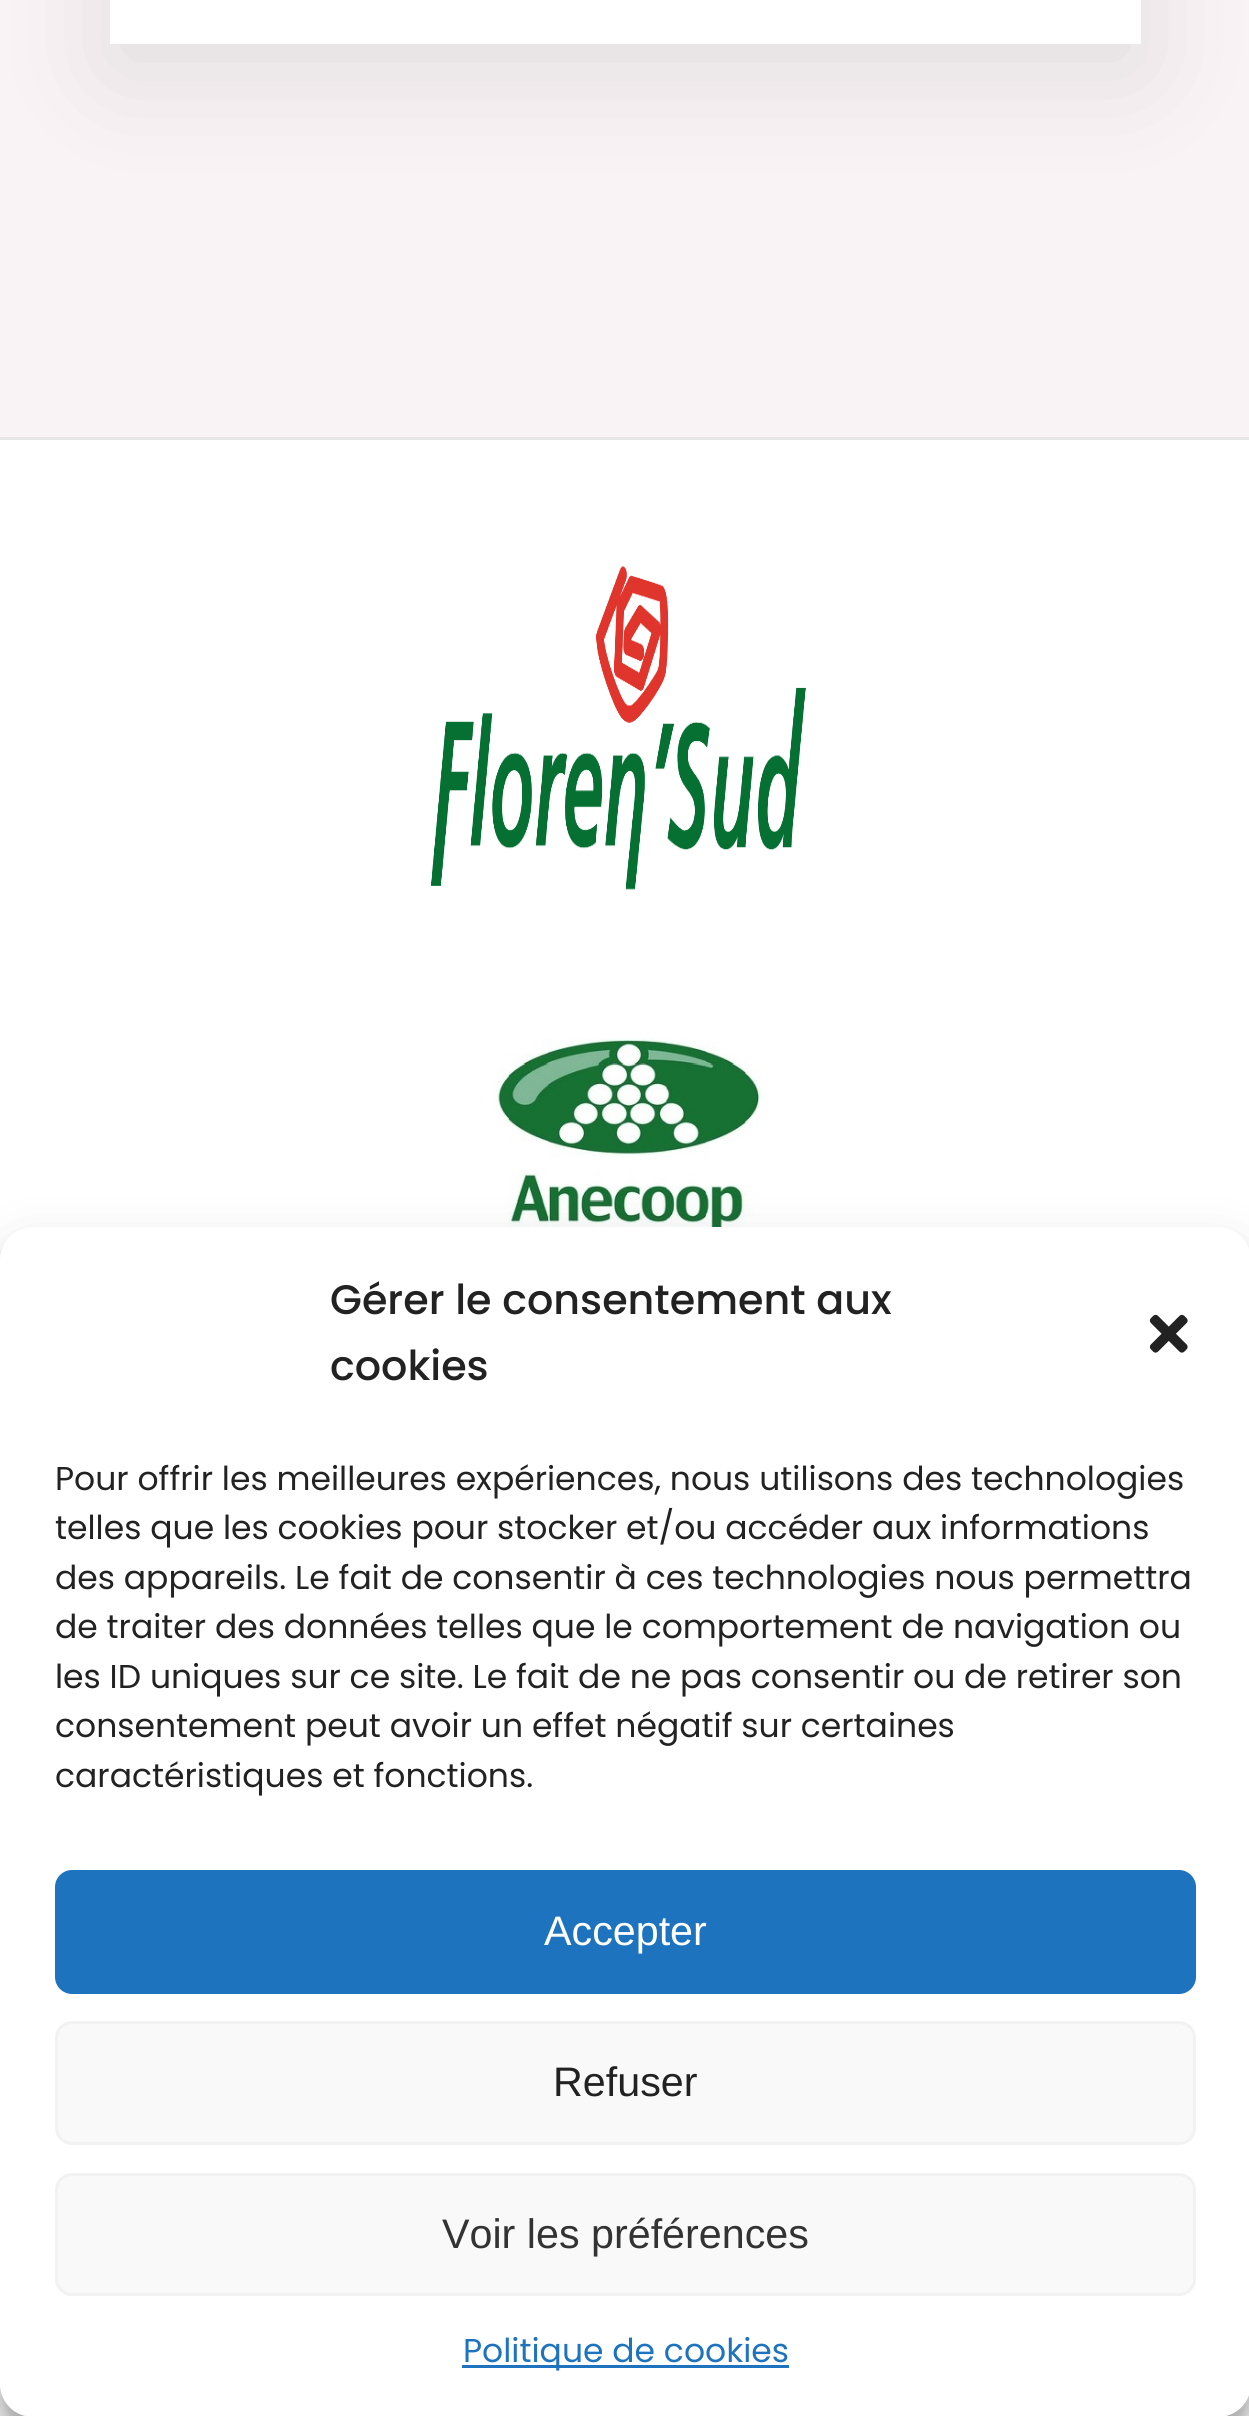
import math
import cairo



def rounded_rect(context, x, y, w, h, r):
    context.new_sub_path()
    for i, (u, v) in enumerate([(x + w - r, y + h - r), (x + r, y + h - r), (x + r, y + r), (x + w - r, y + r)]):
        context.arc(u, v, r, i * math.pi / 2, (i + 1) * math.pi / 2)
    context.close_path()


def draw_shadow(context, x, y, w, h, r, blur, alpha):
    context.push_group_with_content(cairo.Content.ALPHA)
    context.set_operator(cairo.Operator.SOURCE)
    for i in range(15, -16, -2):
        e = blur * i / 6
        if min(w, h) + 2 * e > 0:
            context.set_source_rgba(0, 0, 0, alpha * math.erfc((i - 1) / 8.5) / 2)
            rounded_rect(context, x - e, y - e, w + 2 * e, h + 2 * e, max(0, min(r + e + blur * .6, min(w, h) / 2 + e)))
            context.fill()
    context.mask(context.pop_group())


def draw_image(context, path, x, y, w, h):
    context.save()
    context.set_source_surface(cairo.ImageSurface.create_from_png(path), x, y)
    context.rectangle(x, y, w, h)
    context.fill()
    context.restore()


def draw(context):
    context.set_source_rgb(1, 1, 1)
    context.paint()
    context.set_source_rgb(249 / 255, 243 / 255, 245 / 255)
    context.rectangle(0, 0, 1249, 437)
    context.fill()
    context.set_source_rgb(0, 0, 0)
    draw_shadow(context, 110, -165, 1031, 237, 0, 55, 0.1)
    context.set_source_rgb(1, 1, 1)
    context.rectangle(110, 0, 1031, 44)
    context.fill()
    context.set_source_rgb(230 / 255, 230 / 255, 230 / 255)
    context.rectangle(0, 437, 1249, 3)
    context.fill()
    draw_image(context, "images/1.png", 431, 566, 375, 324)
    draw_image(context, "images/2.png", 494, 1038, 267, 189)
    context.set_source_rgb(0, 0, 0)
    draw_shadow(context, 0, 1243, 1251, 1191, 33, 8, 0.23)
    draw_shadow(context, 0, 1254, 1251, 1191, 33, 27.5, 0.19)
    context.set_source_rgb(1, 1, 1)
    rounded_rect(context, 0, 1227, 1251, 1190, 33)
    context.fill()
    draw_image(context, "images/3.png", 1149, 1314, 39, 39)
    context.set_source_rgb(30 / 255, 115 / 255, 190 / 255)
    rounded_rect(context, 56.5, 1871.5, 1138, 121, 15.5)
    context.fill_preserve()
    context.set_line_width(3)
    context.stroke()
    context.set_source_rgb(249 / 255, 249 / 255, 249 / 255)
    rounded_rect(context, 56.5, 2022.5, 1138, 121, 15.5)
    context.fill_preserve()
    context.set_source_rgb(242 / 255, 242 / 255, 242 / 255)
    context.stroke()
    context.set_source_rgb(249 / 255, 249 / 255, 249 / 255)
    rounded_rect(context, 56.5, 2174.5, 1138, 120, 15.5)
    context.fill_preserve()
    context.set_source_rgb(242 / 255, 242 / 255, 242 / 255)
    context.stroke()
    context.set_source_rgb(30 / 255, 115 / 255, 190 / 255)
    context.rectangle(462, 2365, 327, 3)
    context.fill()
    context.select_font_face("Poppins Medium")
    context.set_font_size(41.25)
    context.set_source_rgb(34 / 255, 34 / 255, 34 / 255)
    context.move_to(330, 1314)
    context.show_text("Gérer le consentement aux")
    context.move_to(330, 1380)
    context.show_text("cookies")
    context.select_font_face("Poppins")
    context.set_font_size(33)
    context.move_to(55, 1490)
    context.show_text("Pour offrir les meilleures expériences, nous utilisons des technologies")
    context.move_to(55, 1539)
    context.show_text("telles que les cookies pour stocker et/ou accéder aux informations")
    context.move_to(55, 1589)
    context.show_text("des appareils. Le fait de consentir à ces technologies nous permettra")
    context.move_to(55, 1638)
    context.show_text("de traiter des données telles que le comportement de navigation ou")
    context.move_to(55, 1688)
    context.show_text("les ID uniques sur ce site. Le fait de ne pas consentir ou de retirer son")
    context.move_to(55, 1737)
    context.show_text("consentement peut avoir un effet négatif sur certaines")
    context.move_to(55, 1787)
    context.show_text("caractéristiques et fonctions.")
    context.select_font_face("Liberation Sans")
    context.set_font_size(41.25)
    context.set_source_rgb(1, 1, 1)
    context.move_to(544, 1945)
    context.show_text("Accepter")
    context.set_source_rgb(34 / 255, 34 / 255, 34 / 255)
    context.move_to(553, 2096)
    context.show_text("Refuser")
    context.set_source_rgb(51 / 255, 51 / 255, 51 / 255)
    context.move_to(442, 2248)
    context.show_text("Voir les préférences")
    context.select_font_face("Poppins")
    context.set_font_size(33)
    context.set_source_rgb(30 / 255, 115 / 255, 190 / 255)
    context.move_to(463, 2362)
    context.show_text("Politique de cookies")


surface = cairo.ImageSurface(cairo.Format.RGB24, 1249, 2416)
context = cairo.Context(surface)
options = cairo.FontOptions()
options.set_hint_metrics(cairo.HintMetrics.OFF)
options.set_hint_style(cairo.HintStyle.NONE)
context.set_font_options(options)
context.set_miter_limit(4)
draw(context)
surface.write_to_png("out.png")
